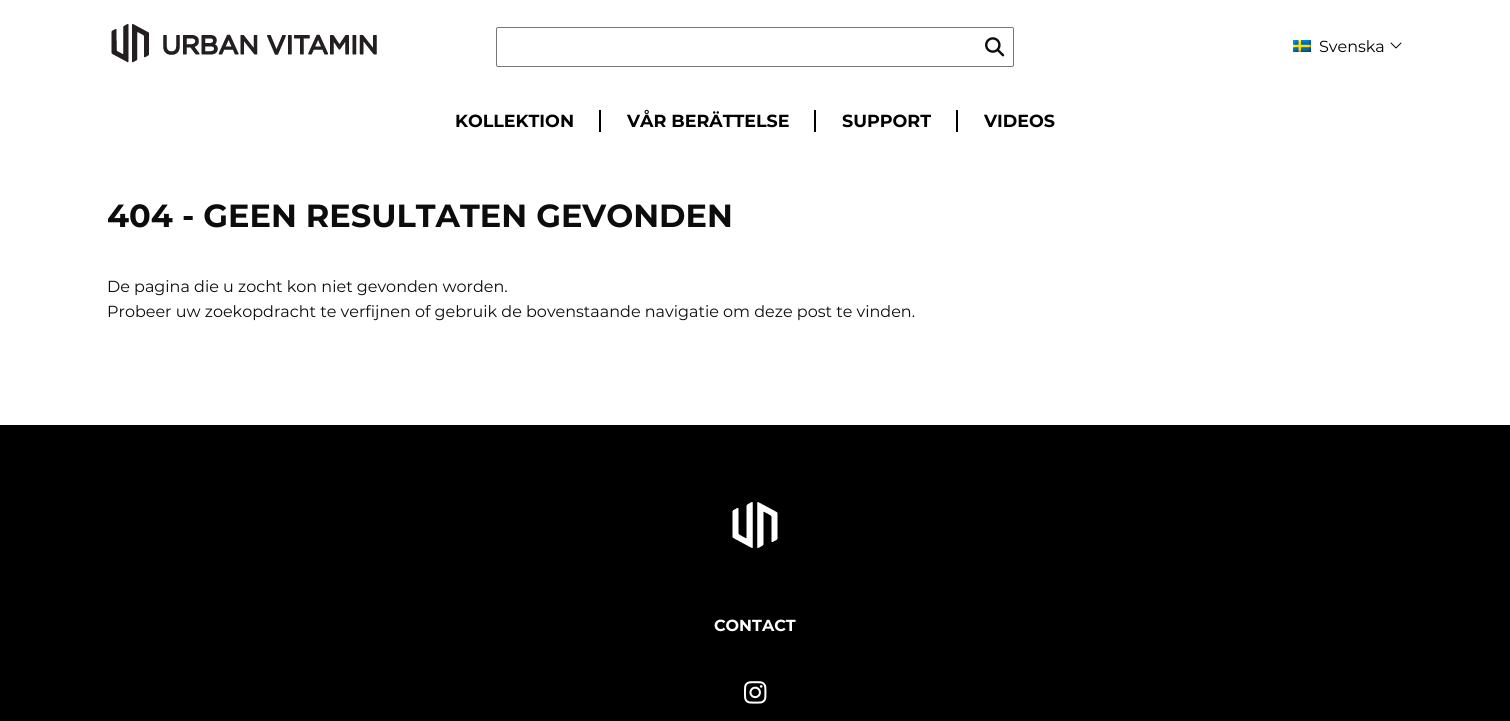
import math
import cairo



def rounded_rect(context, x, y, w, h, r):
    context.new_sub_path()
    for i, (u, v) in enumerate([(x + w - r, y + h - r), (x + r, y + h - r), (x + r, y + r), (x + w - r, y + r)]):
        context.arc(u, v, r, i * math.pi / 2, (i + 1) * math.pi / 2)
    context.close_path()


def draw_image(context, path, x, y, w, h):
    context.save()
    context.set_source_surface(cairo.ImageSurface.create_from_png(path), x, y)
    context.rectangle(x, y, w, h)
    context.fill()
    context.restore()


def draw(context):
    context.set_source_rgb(1, 1, 1)
    context.paint()
    draw_image(context, "images/1.png", 111, 24, 266, 39)
    rounded_rect(context, 496.5, 27.5, 517, 39, 1.5)
    context.set_source_rgb(118 / 255, 118 / 255, 118 / 255)
    context.set_line_width(1)
    context.stroke()
    draw_image(context, "images/2.png", 985, 37, 20, 20)
    draw_image(context, "images/3.png", 1293, 40, 18, 12)
    draw_image(context, "images/4.png", 1390, 42, 12, 7)
    context.set_source_rgb(0, 0, 0)
    context.rectangle(599, 110, 2, 22)
    context.fill()
    context.rectangle(814, 110, 2, 22)
    context.fill()
    context.rectangle(956, 110, 2, 22)
    context.fill()
    context.rectangle(0, 425, 1510, 296)
    context.fill()
    draw_image(context, "images/5.png", 732, 502, 46, 46)
    draw_image(context, "images/6.png", 744, 681, 23, 23)
    context.select_font_face("Montserrat")
    context.set_font_size(16)
    context.move_to(1319, 52)
    context.show_text("Svenska")
    context.select_font_face("Montserrat", cairo.FontSlant.NORMAL, cairo.FontWeight.BOLD)
    context.set_font_size(17.5)
    context.move_to(455, 127)
    context.show_text("KOLLEKTION")
    context.move_to(627, 127)
    context.show_text("VÅR BERÄTTELSE")
    context.move_to(842, 127)
    context.show_text("SUPPORT")
    context.move_to(984, 127)
    context.show_text("VIDEOS")
    context.set_font_size(32)
    context.set_source_rgb(12 / 255, 12 / 255, 12 / 255)
    context.move_to(107, 227)
    context.show_text("404 - GEEN RESULTATEN GEVONDEN")
    context.select_font_face("Montserrat")
    context.set_font_size(16)
    context.move_to(107, 292)
    context.show_text("De pagina die u zocht kon niet gevonden worden.")
    context.move_to(107, 317)
    context.show_text("Probeer uw zoekopdracht te verfijnen of gebruik de bovenstaande navigatie om deze post te vinden.")
    context.select_font_face("Montserrat", cairo.FontSlant.NORMAL, cairo.FontWeight.BOLD)
    context.set_source_rgb(1, 1, 1)
    context.move_to(714, 631)
    context.show_text("CONTACT")


surface = cairo.ImageSurface(cairo.Format.RGB24, 1510, 721)
context = cairo.Context(surface)
options = cairo.FontOptions()
options.set_hint_metrics(cairo.HintMetrics.OFF)
options.set_hint_style(cairo.HintStyle.NONE)
context.set_font_options(options)
context.set_miter_limit(4)
draw(context)
surface.write_to_png("out.png")
